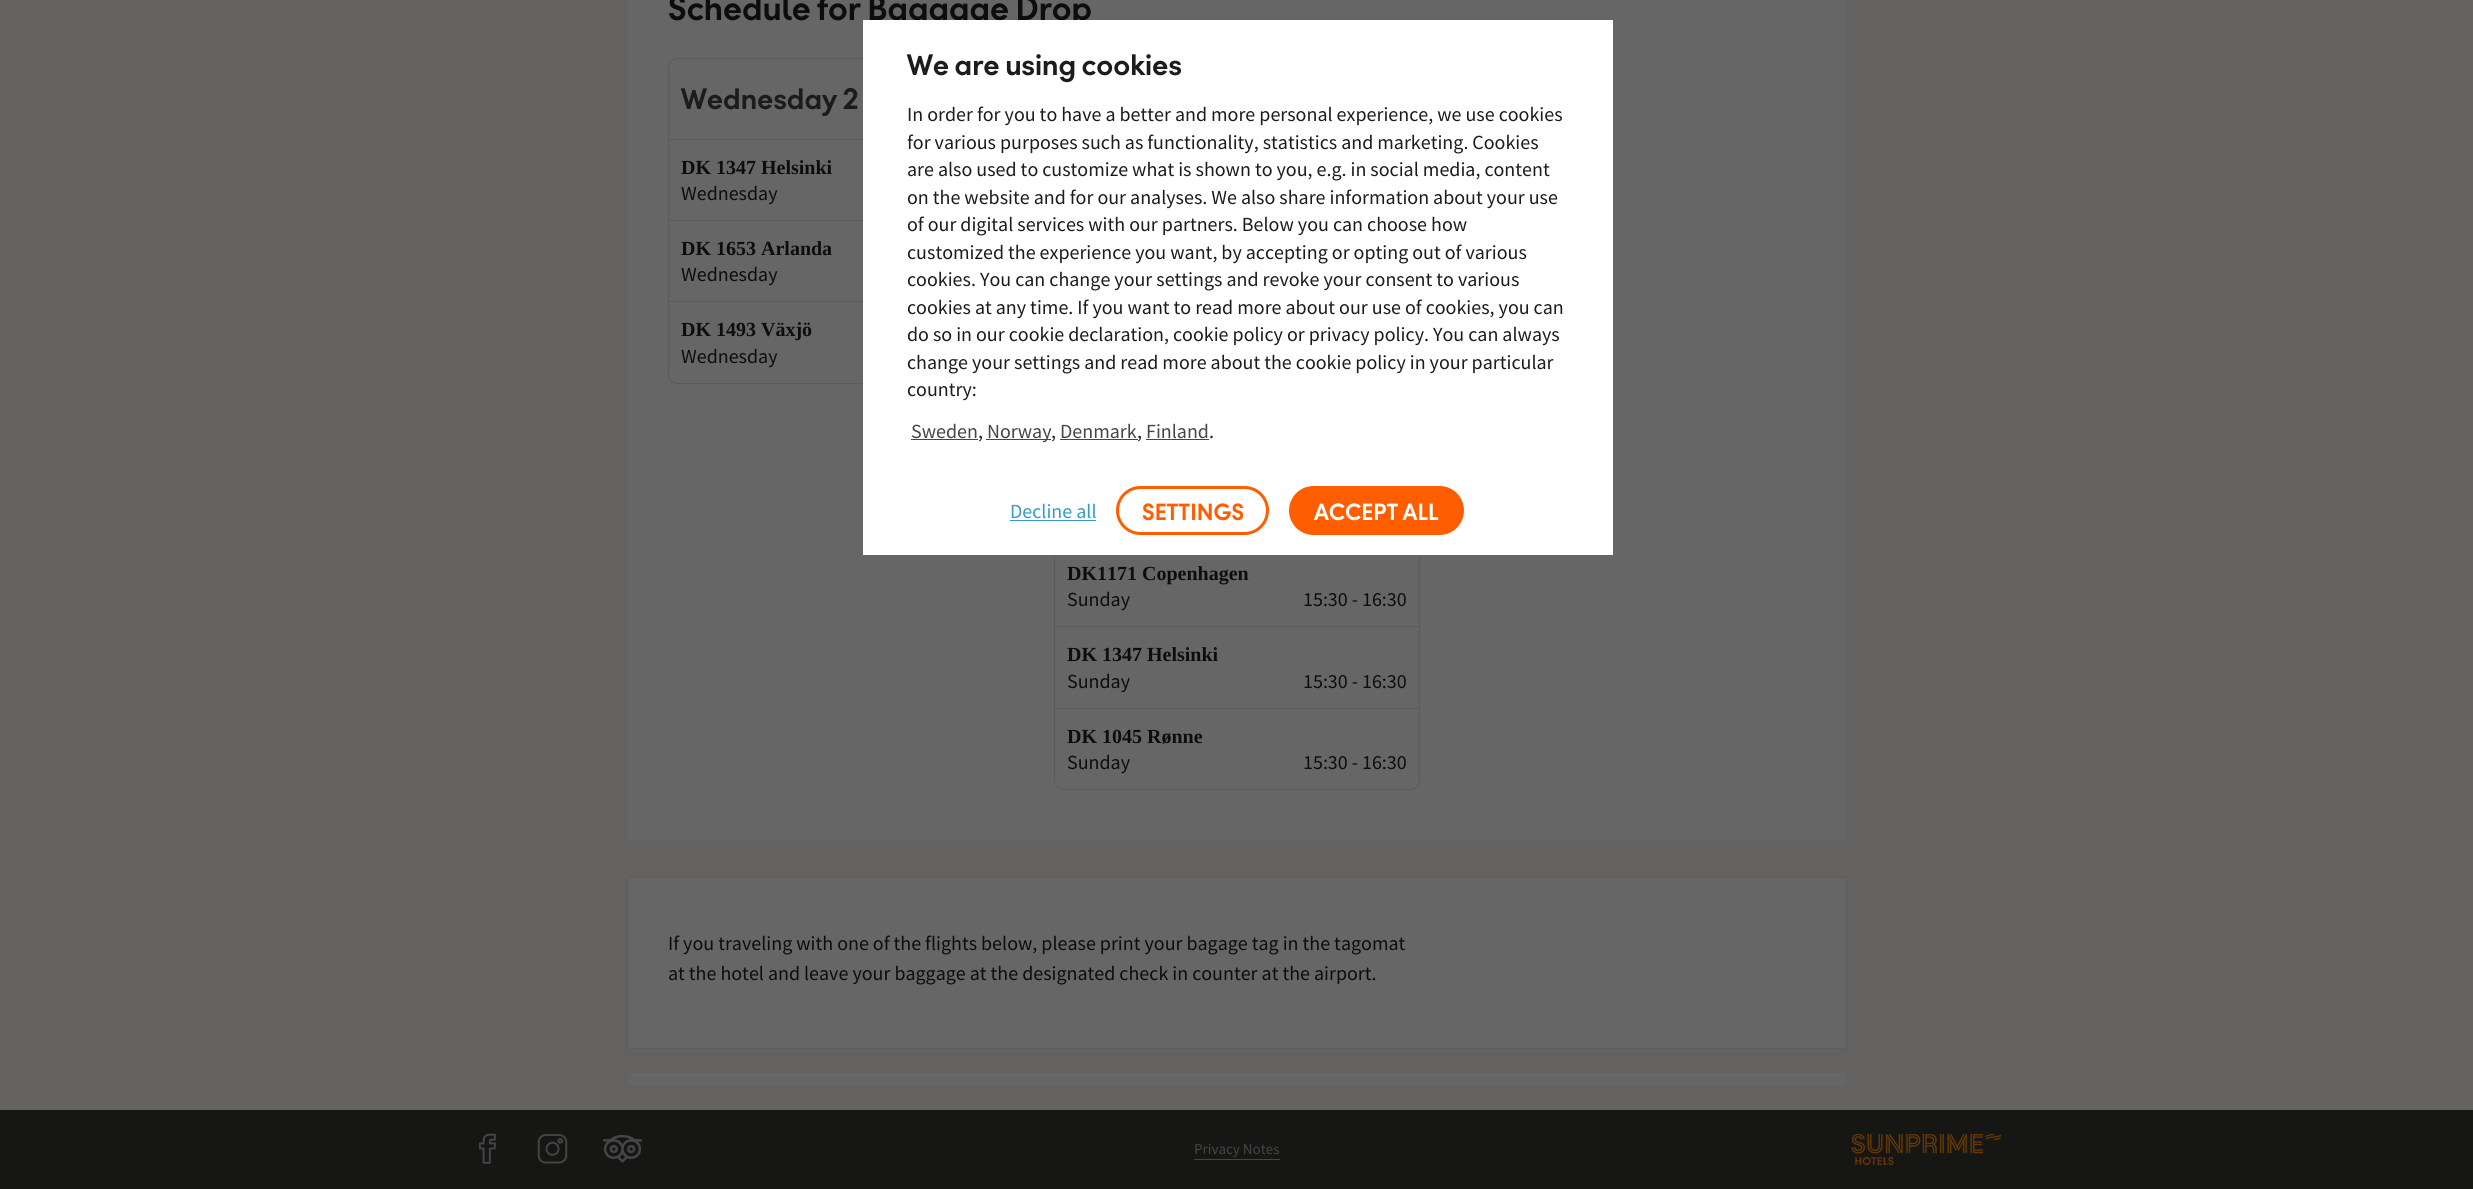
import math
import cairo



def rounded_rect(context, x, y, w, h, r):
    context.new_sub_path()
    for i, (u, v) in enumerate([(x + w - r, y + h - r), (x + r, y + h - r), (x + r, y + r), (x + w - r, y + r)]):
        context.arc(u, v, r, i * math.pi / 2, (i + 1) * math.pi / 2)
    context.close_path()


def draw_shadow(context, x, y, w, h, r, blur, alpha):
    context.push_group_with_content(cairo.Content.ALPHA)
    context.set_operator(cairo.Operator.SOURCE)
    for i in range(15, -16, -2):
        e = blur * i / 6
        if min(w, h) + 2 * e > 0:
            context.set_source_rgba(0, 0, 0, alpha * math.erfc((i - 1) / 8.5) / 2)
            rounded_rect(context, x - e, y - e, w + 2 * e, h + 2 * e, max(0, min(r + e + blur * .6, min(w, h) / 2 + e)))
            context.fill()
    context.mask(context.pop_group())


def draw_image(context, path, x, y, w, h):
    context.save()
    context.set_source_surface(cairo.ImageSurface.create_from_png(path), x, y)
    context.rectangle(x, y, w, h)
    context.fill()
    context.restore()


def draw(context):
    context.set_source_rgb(100 / 255, 98 / 255, 96 / 255)
    context.paint()
    context.set_source_rgb(102 / 255, 102 / 255, 102 / 255)
    context.rectangle(628, 0, 1218, 840)
    context.fill()
    rounded_rect(context, 668.5, 58.5, 366, 325, 9.5)
    context.set_source_rgb(91 / 255, 91 / 255, 91 / 255)
    context.set_line_width(1)
    context.stroke()
    context.rectangle(669, 139, 194, 1)
    context.fill()
    context.rectangle(669, 220, 194, 1)
    context.fill()
    context.rectangle(669, 301, 194, 1)
    context.fill()
    rounded_rect(context, 1054.5, 58.5, 365, 731, 9.5)
    context.stroke()
    context.rectangle(1055, 626, 364, 1)
    context.fill()
    context.rectangle(1055, 708, 364, 1)
    context.fill()
    context.set_source_rgb(80 / 255, 80 / 255, 80 / 255)
    draw_shadow(context, 628, 878, 1218, 170, 0, 0.5, 1)
    context.set_source_rgb(102 / 255, 102 / 255, 102 / 255)
    context.rectangle(628, 878, 1218, 170)
    context.fill()
    context.rectangle(628, 1073, 1218, 12)
    context.fill()
    context.set_source_rgb(22 / 255, 22 / 255, 21 / 255)
    context.rectangle(0, 1110, 2473, 79)
    context.fill()
    draw_image(context, "images/1.png", 478, 1133, 19, 31)
    draw_image(context, "images/2.png", 537, 1134, 31, 30)
    draw_image(context, "images/3.png", 602, 1134, 41, 29)
    context.set_source_rgb(69 / 255, 69 / 255, 69 / 255)
    context.rectangle(1194, 1159, 86, 1)
    context.fill()
    draw_image(context, "images/4.png", 1851, 1134, 150, 31)
    context.select_font_face("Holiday", cairo.FontSlant.NORMAL, cairo.FontWeight.BOLD)
    context.set_font_size(35)
    context.set_source_rgb(13 / 255, 13 / 255, 13 / 255)
    context.move_to(668, 20)
    context.show_text("Schedule for Baggage Drop")
    context.set_font_size(30)
    context.set_source_rgb(28 / 255, 28 / 255, 28 / 255)
    context.move_to(681, 109)
    context.show_text("Wednesday 2")
    context.select_font_face("Liberation Serif", cairo.FontSlant.NORMAL, cairo.FontWeight.BOLD)
    context.set_font_size(20)
    context.set_source_rgb(13 / 255, 13 / 255, 13 / 255)
    context.move_to(681, 174)
    context.show_text("DK 1347 Helsinki")
    context.select_font_face("Source Sans Pro")
    context.move_to(681, 200)
    context.show_text("Wednesday")
    context.select_font_face("Liberation Serif", cairo.FontSlant.NORMAL, cairo.FontWeight.BOLD)
    context.move_to(681, 255)
    context.show_text("DK 1653 Arlanda")
    context.select_font_face("Source Sans Pro")
    context.move_to(681, 281)
    context.show_text("Wednesday")
    context.select_font_face("Liberation Serif", cairo.FontSlant.NORMAL, cairo.FontWeight.BOLD)
    context.move_to(681, 336)
    context.show_text("DK 1493 Växjö")
    context.select_font_face("Source Sans Pro")
    context.move_to(681, 363)
    context.show_text("Wednesday")
    context.select_font_face("Liberation Serif", cairo.FontSlant.NORMAL, cairo.FontWeight.BOLD)
    context.move_to(1067, 580)
    context.show_text("DK1171 Copenhagen")
    context.select_font_face("Source Sans Pro")
    context.move_to(1067, 606)
    context.show_text("Sunday")
    context.move_to(1303, 606)
    context.show_text("15:30 - 16:30")
    context.select_font_face("Liberation Serif", cairo.FontSlant.NORMAL, cairo.FontWeight.BOLD)
    context.move_to(1067, 661)
    context.show_text("DK 1347 Helsinki")
    context.select_font_face("Source Sans Pro")
    context.move_to(1067, 688)
    context.show_text("Sunday")
    context.move_to(1303, 688)
    context.show_text("15:30 - 16:30")
    context.select_font_face("Liberation Serif", cairo.FontSlant.NORMAL, cairo.FontWeight.BOLD)
    context.move_to(1067, 743)
    context.show_text("DK 1045 Rønne")
    context.select_font_face("Source Sans Pro")
    context.move_to(1067, 769)
    context.show_text("Sunday")
    context.move_to(1303, 769)
    context.show_text("15:30 - 16:30")
    context.move_to(668, 950)
    context.show_text("If you traveling with one of the flights below, please print your bagage tag in the tagomat")
    context.move_to(668, 980)
    context.show_text("at the hotel and leave your baggage at the designated check in counter at the airport.")
    context.set_source_rgb(1, 1, 1)
    context.rectangle(863, 20, 750, 535)
    context.fill()
    context.select_font_face("Holiday", cairo.FontSlant.NORMAL, cairo.FontWeight.BOLD)
    context.set_font_size(30)
    context.set_source_rgb(28 / 255, 28 / 255, 28 / 255)
    context.move_to(907, 75)
    context.show_text("We are using cookies")
    context.select_font_face("Source Sans Pro")
    context.set_font_size(20)
    context.move_to(907, 121)
    context.show_text("In order for you to have a better and more personal experience, we use cookies")
    context.move_to(907, 149)
    context.show_text("for various purposes such as functionality, statistics and marketing. Cookies")
    context.move_to(907, 176)
    context.show_text("are also used to customize what is shown to you, e.g. in social media, content")
    context.move_to(907, 204)
    context.show_text("on the website and for our analyses. We also share information about your use")
    context.move_to(907, 231)
    context.show_text("of our digital services with our partners. Below you can choose how")
    context.move_to(907, 259)
    context.show_text("customized the experience you want, by accepting or opting out of various")
    context.move_to(907, 286)
    context.show_text("cookies. You can change your settings and revoke your consent to various")
    context.move_to(907, 314)
    context.show_text("cookies at any time. If you want to read more about our use of cookies, you can")
    context.move_to(907, 341)
    context.show_text("do so in our cookie declaration, cookie policy or privacy policy. You can always")
    context.move_to(907, 369)
    context.show_text("change your settings and read more about the cookie policy in your particular")
    context.move_to(907, 396)
    context.show_text("country:")
    context.set_source_rgb(69 / 255, 69 / 255, 69 / 255)
    context.move_to(911, 438)
    context.show_text("Sweden")
    context.rectangle(911, 439, 67, 1)
    context.fill()
    context.set_source_rgb(28 / 255, 28 / 255, 28 / 255)
    context.move_to(978, 438)
    context.show_text(",")
    context.set_source_rgb(69 / 255, 69 / 255, 69 / 255)
    context.rectangle(986, 439, 65, 1)
    context.fill()
    context.move_to(987, 438)
    context.show_text("Norway")
    context.set_source_rgb(28 / 255, 28 / 255, 28 / 255)
    context.move_to(1051, 438)
    context.show_text(",")
    context.set_source_rgb(69 / 255, 69 / 255, 69 / 255)
    context.move_to(1060, 438)
    context.show_text("Denmark")
    context.rectangle(1060, 439, 78, 1)
    context.fill()
    context.set_source_rgb(28 / 255, 28 / 255, 28 / 255)
    context.move_to(1137, 438)
    context.show_text(",")
    context.set_source_rgb(69 / 255, 69 / 255, 69 / 255)
    context.move_to(1146, 438)
    context.show_text("Finland")
    context.rectangle(1146, 439, 63, 1)
    context.fill()
    context.set_source_rgb(28 / 255, 28 / 255, 28 / 255)
    context.move_to(1209, 438)
    context.show_text(".")
    context.set_source_rgb(53 / 255, 156 / 255, 187 / 255)
    context.move_to(1010, 518)
    context.show_text("Decline all")
    context.rectangle(1010, 520, 86, 1)
    context.fill()
    rounded_rect(context, 1117.5, 487.5, 150, 46, 23)
    context.set_source_rgb(1, 94 / 255, 0)
    context.set_line_width(3)
    context.stroke()
    context.select_font_face("Holiday", cairo.FontSlant.NORMAL, cairo.FontWeight.BOLD)
    context.set_font_size(23.75)
    context.move_to(1142, 520)
    context.show_text("SETTINGS")
    rounded_rect(context, 1290.5, 487.5, 172, 46, 23)
    context.fill_preserve()
    context.stroke()
    context.set_source_rgb(1, 1, 1)
    context.move_to(1314, 520)
    context.show_text("ACCEPT ALL")
    context.select_font_face("Source Sans Pro")
    context.set_font_size(15)
    context.set_source_rgb(69 / 255, 69 / 255, 69 / 255)
    context.move_to(1194, 1154)
    context.show_text("Privacy Notes")


surface = cairo.ImageSurface(cairo.Format.RGB24, 2473, 1189)
context = cairo.Context(surface)
options = cairo.FontOptions()
options.set_hint_metrics(cairo.HintMetrics.OFF)
options.set_hint_style(cairo.HintStyle.NONE)
context.set_font_options(options)
context.set_miter_limit(4)
draw(context)
surface.write_to_png("out.png")
